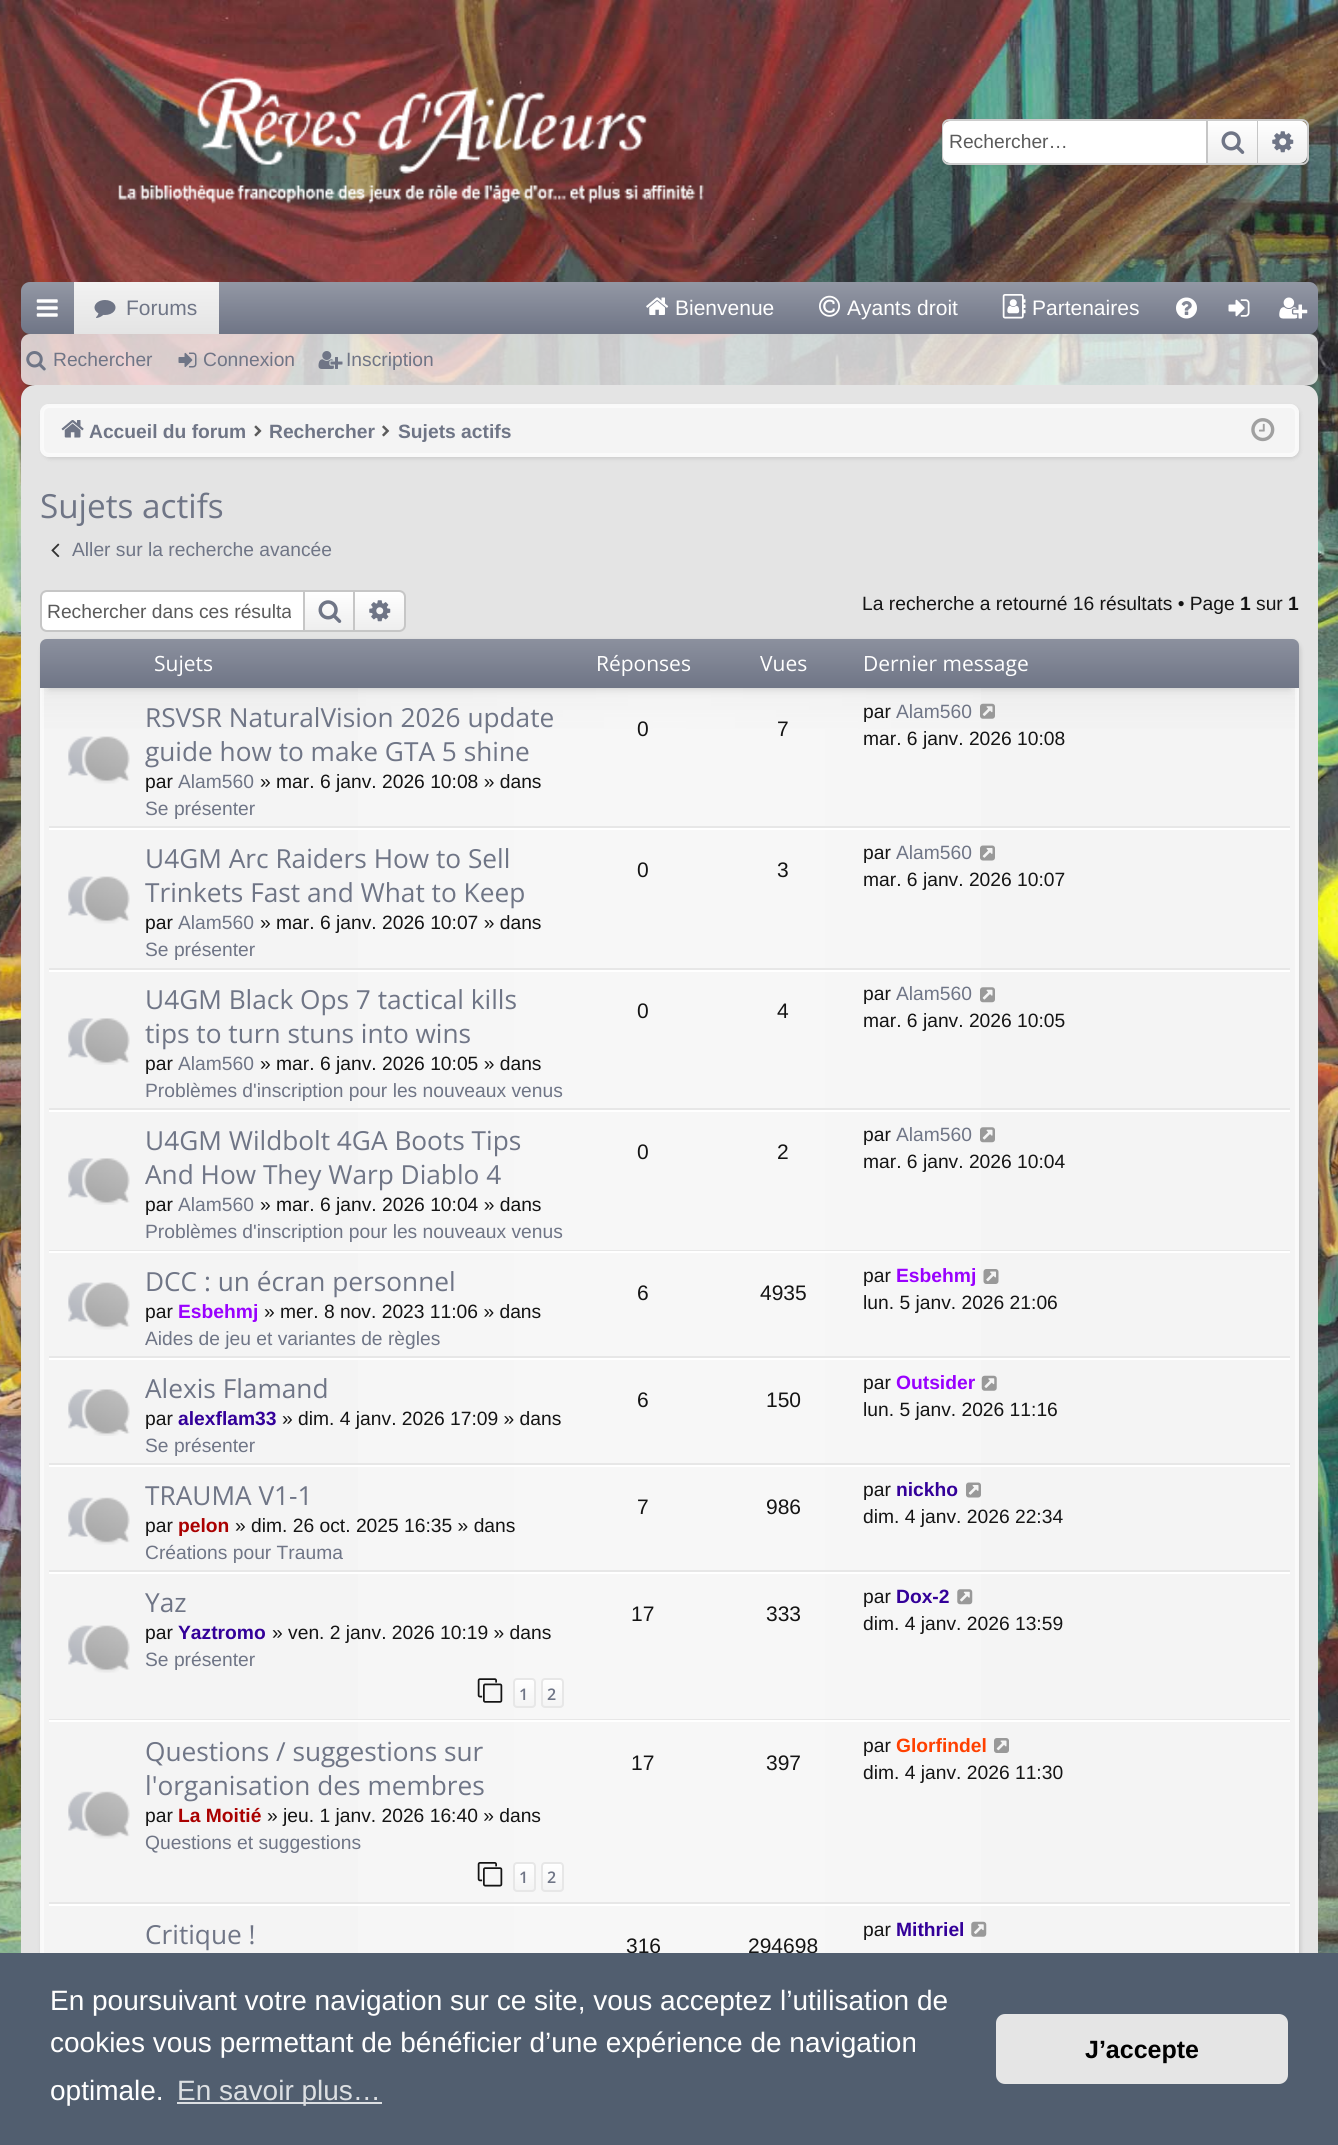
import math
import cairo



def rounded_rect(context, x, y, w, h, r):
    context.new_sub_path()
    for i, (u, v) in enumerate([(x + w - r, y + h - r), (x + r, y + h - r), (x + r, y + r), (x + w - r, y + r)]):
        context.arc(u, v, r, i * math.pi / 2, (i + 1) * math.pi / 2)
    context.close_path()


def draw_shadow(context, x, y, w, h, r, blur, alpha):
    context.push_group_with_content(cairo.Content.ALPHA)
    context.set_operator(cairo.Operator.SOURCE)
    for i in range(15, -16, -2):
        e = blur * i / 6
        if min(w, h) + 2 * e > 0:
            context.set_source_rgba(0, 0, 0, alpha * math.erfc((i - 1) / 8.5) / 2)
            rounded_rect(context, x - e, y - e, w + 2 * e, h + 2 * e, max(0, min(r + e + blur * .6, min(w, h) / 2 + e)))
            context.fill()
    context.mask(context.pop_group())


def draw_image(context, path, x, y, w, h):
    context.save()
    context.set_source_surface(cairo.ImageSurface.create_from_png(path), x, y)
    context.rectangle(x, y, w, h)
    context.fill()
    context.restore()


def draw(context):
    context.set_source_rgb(1, 1, 1)
    context.paint()
    draw_image(context, "images/1.png", 0, 0, 1338, 1953)
    draw_image(context, "images/2.png", 118, 76, 586, 128)
    context.set_source_rgb(0, 0, 0)
    draw_shadow(context, 943, 121, 368, 45, 7, 2.5, 0.1)
    rounded_rect(context, 943, 120, 365, 44, 6)
    context.set_source_rgb(204 / 255, 204 / 255, 204 / 255)
    context.stroke()
    context.set_source_rgb(1, 1, 1)
    context.new_path()
    context.move_to(950, 121)
    context.line_to(1206, 121)
    context.line_to(1206, 163)
    context.line_to(950, 163)
    context.curve_to(946, 163, 943, 160, 943, 156)
    context.line_to(943, 128)
    context.curve_to(943, 124, 946, 121, 950, 121)
    context.close_path()
    context.fill()
    gradient = cairo.LinearGradient(1232, 121, 1232, 163)
    gradient.add_color_stop_rgba(0, 1, 1, 1, 1)
    gradient.add_color_stop_rgba(1, 238 / 255, 238 / 255, 238 / 255, 1)
    context.set_source(gradient)
    context.rectangle(1208, 121, 49, 42)
    context.fill()
    context.set_source_rgb(198 / 255, 198 / 255, 198 / 255)
    context.rectangle(1257, 121, 1, 42)
    context.fill()
    context.rectangle(1206, 121, 2, 42)
    context.fill()
    draw_image(context, "images/3.png", 1221, 131, 24, 23)
    context.set_source_rgb(238 / 255, 238 / 255, 238 / 255)
    context.new_path()
    context.move_to(1258, 121)
    context.line_to(1300, 121)
    context.curve_to(1304, 121, 1307, 124, 1307, 128)
    context.line_to(1307, 156)
    context.curve_to(1307, 160, 1304, 163, 1300, 163)
    context.line_to(1258, 163)
    context.close_path()
    context.fill()
    gradient = cairo.LinearGradient(1283, 121, 1283, 163)
    gradient.add_color_stop_rgba(0, 1, 1, 1, 1)
    gradient.add_color_stop_rgba(1, 1, 1, 1, 0)
    context.set_source(gradient)
    context.new_path()
    context.move_to(1258, 121)
    context.line_to(1300, 121)
    context.curve_to(1304, 121, 1307, 124, 1307, 128)
    context.line_to(1307, 156)
    context.curve_to(1307, 160, 1304, 163, 1300, 163)
    context.line_to(1258, 163)
    context.close_path()
    context.fill()
    draw_image(context, "images/4.png", 1272, 131, 22, 22)
    context.set_source_rgb(0, 0, 0)
    draw_shadow(context, 30, 299, 1279, 35, 0, 4.5, 0.2)
    context.set_source_rgb(111 / 255, 117 / 255, 134 / 255)
    rounded_rect(context, 21, 282, 1297, 52, 9)
    context.fill()
    gradient = cairo.LinearGradient(669, 282, 669, 334)
    gradient.add_color_stop_rgba(0, 1, 1, 1, 0.25)
    gradient.add_color_stop_rgba(1, 1, 1, 1, 0)
    context.set_source(gradient)
    rounded_rect(context, 21, 282, 1297, 52, 9)
    context.fill()
    draw_image(context, "images/5.png", 36, 299, 22, 18)
    gradient = cairo.LinearGradient(146, 282, 146, 334)
    gradient.add_color_stop_rgba(0, 242 / 255, 242 / 255, 242 / 255, 1)
    gradient.add_color_stop_rgba(1, 228 / 255, 228 / 255, 228 / 255, 1)
    context.set_source(gradient)
    context.rectangle(74, 282, 145, 52)
    context.fill()
    draw_image(context, "images/6.png", 94, 300, 22, 18)
    draw_image(context, "images/7.png", 646, 297, 23, 18)
    draw_image(context, "images/8.png", 819, 295, 21, 22)
    draw_image(context, "images/9.png", 1002, 294, 24, 25)
    draw_image(context, "images/10.png", 1176, 297, 21, 22)
    draw_image(context, "images/11.png", 1228, 299, 22, 18)
    draw_image(context, "images/12.png", 1279, 297, 29, 22)
    context.set_source_rgba(1, 1, 1, 0.75)
    rounded_rect(context, 21, 334, 1297, 51, 9)
    context.fill()
    draw_image(context, "images/13.png", 26, 351, 20, 20)
    draw_image(context, "images/14.png", 178, 352, 19, 16)
    draw_image(context, "images/15.png", 318, 351, 25, 18)
    context.set_source_rgb(228 / 255, 228 / 255, 228 / 255)
    rounded_rect(context, 22, 386, 1295, 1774, 13)
    context.fill_preserve()
    context.stroke()
    context.set_source_rgb(0, 0, 0)
    draw_shadow(context, 42, 406, 1258, 53, 9, 2, 0.1)
    context.set_source_rgb(244 / 255, 244 / 255, 244 / 255)
    rounded_rect(context, 40, 404, 1259, 53, 9)
    context.fill()
    rounded_rect(context, 43, 407, 1253, 47, 6)
    context.set_source_rgb(250 / 255, 250 / 255, 250 / 255)
    context.stroke()
    rounded_rect(context, 41, 405, 1257, 51, 8)
    context.set_source_rgb(249 / 255, 249 / 255, 249 / 255)
    context.stroke()
    draw_image(context, "images/16.png", 61, 420, 23, 18)
    draw_image(context, "images/17.png", 254, 425, 8, 12)
    draw_image(context, "images/18.png", 382, 425, 8, 12)
    draw_image(context, "images/19.png", 1251, 418, 24, 24)
    draw_image(context, "images/20.png", 51, 543, 9, 15)
    context.set_source_rgb(1, 1, 1)
    context.new_path()
    context.move_to(47, 592)
    context.line_to(303, 592)
    context.line_to(303, 630)
    context.line_to(47, 630)
    context.curve_to(44, 630, 42, 628, 42, 625)
    context.line_to(42, 597)
    context.curve_to(42, 594, 44, 592, 47, 592)
    context.close_path()
    context.fill()
    context.set_source_rgb(198 / 255, 198 / 255, 198 / 255)
    context.set_fill_rule(cairo.FillRule.EVEN_ODD)
    context.new_path()
    context.move_to(47, 590)
    context.line_to(303, 590)
    context.line_to(303, 632)
    context.line_to(47, 632)
    context.curve_to(43, 632, 40, 629, 40, 625)
    context.line_to(40, 597)
    context.curve_to(40, 593, 43, 590, 47, 590)
    context.close_path()
    context.move_to(47, 592)
    context.line_to(303, 592)
    context.line_to(303, 630)
    context.line_to(47, 630)
    context.curve_to(44, 630, 42, 628, 42, 625)
    context.line_to(42, 597)
    context.curve_to(42, 594, 44, 592, 47, 592)
    context.close_path()
    context.fill()
    gradient = cairo.LinearGradient(329, 592, 329, 630)
    gradient.add_color_stop_rgba(0, 1, 1, 1, 1)
    gradient.add_color_stop_rgba(1, 238 / 255, 238 / 255, 238 / 255, 1)
    context.set_source(gradient)
    context.rectangle(305, 592, 48, 38)
    context.fill()
    context.rectangle(304, 591, 50, 40)
    context.set_source_rgb(198 / 255, 198 / 255, 198 / 255)
    context.stroke()
    draw_image(context, "images/21.png", 318, 600, 24, 23)
    context.set_source_rgb(238 / 255, 238 / 255, 238 / 255)
    context.new_path()
    context.move_to(355, 592)
    context.line_to(399, 592)
    context.curve_to(402, 592, 404, 594, 404, 597)
    context.line_to(404, 625)
    context.curve_to(404, 628, 402, 630, 399, 630)
    context.line_to(355, 630)
    context.close_path()
    context.fill()
    gradient = cairo.LinearGradient(380, 592, 380, 630)
    gradient.add_color_stop_rgba(0, 1, 1, 1, 1)
    gradient.add_color_stop_rgba(1, 1, 1, 1, 0)
    context.set_source(gradient)
    context.new_path()
    context.move_to(355, 592)
    context.line_to(399, 592)
    context.curve_to(402, 592, 404, 594, 404, 597)
    context.line_to(404, 625)
    context.curve_to(404, 628, 402, 630, 399, 630)
    context.line_to(355, 630)
    context.close_path()
    context.fill()
    context.set_source_rgb(198 / 255, 198 / 255, 198 / 255)
    context.new_path()
    context.move_to(355, 590)
    context.line_to(399, 590)
    context.curve_to(403, 590, 406, 593, 406, 597)
    context.line_to(406, 625)
    context.curve_to(406, 629, 403, 632, 399, 632)
    context.line_to(355, 632)
    context.close_path()
    context.move_to(355, 592)
    context.line_to(399, 592)
    context.curve_to(402, 592, 404, 594, 404, 597)
    context.line_to(404, 625)
    context.curve_to(404, 628, 402, 630, 399, 630)
    context.line_to(355, 630)
    context.close_path()
    context.fill()
    draw_image(context, "images/22.png", 369, 600, 22, 22)
    context.set_source_rgb(0, 0, 0)
    draw_shadow(context, 42, 641, 1258, 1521, 9, 2.5, 0.15)
    context.set_source_rgb(244 / 255, 244 / 255, 244 / 255)
    rounded_rect(context, 40, 639, 1259, 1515, 9)
    context.fill()
    context.save()
    context.set_fill_rule(cairo.FillRule.WINDING)
    rounded_rect(context, 40, 639, 1259, 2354, 9)
    context.clip()
    gradient = cairo.LinearGradient(669, 641, 669, 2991)
    gradient.add_color_stop_rgba(0, 204 / 255, 204 / 255, 204 / 255, 0.2)
    gradient.add_color_stop_rgba(0.01, 204 / 255, 204 / 255, 204 / 255, 0.25)
    gradient.add_color_stop_rgba(0.04, 204 / 255, 204 / 255, 204 / 255, 0)
    context.set_source(gradient)
    context.rectangle(40, 642, 1259, 87)
    context.fill()
    context.restore()
    gradient = cairo.LinearGradient(42, 1816, 1297, 1816)
    gradient.add_color_stop_rgba(0, 1, 1, 1, 0)
    gradient.add_color_stop_rgba(0.5, 1, 1, 1, 0.3)
    gradient.add_color_stop_rgba(1, 1, 1, 1, 0)
    context.set_source(gradient)
    context.rectangle(358, 688, 623, 1265)
    context.fill()
    context.rectangle(43, 642, 1253, 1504)
    context.set_source_rgba(1, 1, 1, 0.5)
    context.stroke()
    rounded_rect(context, 41, 640, 1257, 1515, 8)
    context.set_source_rgb(249 / 255, 249 / 255, 249 / 255)
    context.stroke()
    context.set_source_rgb(0, 0, 0)
    draw_shadow(context, 49, 656, 1241, 32, 0, 4.5, 0.2)
    context.set_source_rgb(111 / 255, 117 / 255, 134 / 255)
    context.new_path()
    context.move_to(47, 639)
    context.line_to(1292, 639)
    context.curve_to(1296, 639, 1299, 642, 1299, 646)
    context.line_to(1299, 688)
    context.line_to(40, 688)
    context.line_to(40, 646)
    context.curve_to(40, 642, 43, 639, 47, 639)
    context.close_path()
    context.fill()
    gradient = cairo.LinearGradient(669, 639, 669, 688)
    gradient.add_color_stop_rgba(0, 1, 1, 1, 0.2)
    gradient.add_color_stop_rgba(1, 1, 1, 1, 0)
    context.set_source(gradient)
    context.new_path()
    context.move_to(47, 639)
    context.line_to(1292, 639)
    context.curve_to(1296, 639, 1299, 642, 1299, 646)
    context.line_to(1299, 688)
    context.line_to(40, 688)
    context.line_to(40, 646)
    context.curve_to(40, 642, 43, 639, 47, 639)
    context.close_path()
    context.fill()
    context.set_source_rgb(231 / 255, 231 / 255, 231 / 255)
    context.rectangle(49, 826, 1241, 2)
    context.fill()
    draw_image(context, "images/23.png", 68, 736, 62, 48)
    draw_image(context, "images/24.png", 980, 703, 15, 16)
    context.set_source_rgb(1, 1, 1)
    context.rectangle(49, 828, 1241, 2)
    context.fill()
    context.set_source_rgb(231 / 255, 231 / 255, 231 / 255)
    context.rectangle(49, 968, 1241, 2)
    context.fill()
    draw_image(context, "images/23.png", 68, 876, 62, 48)
    draw_image(context, "images/25.png", 980, 845, 15, 16)
    context.set_source_rgb(1, 1, 1)
    context.rectangle(49, 970, 1241, 2)
    context.fill()
    context.set_source_rgb(231 / 255, 231 / 255, 231 / 255)
    context.rectangle(49, 1108, 1241, 2)
    context.fill()
    draw_image(context, "images/26.png", 68, 1018, 62, 47)
    draw_image(context, "images/27.png", 980, 987, 15, 16)
    context.set_source_rgb(1, 1, 1)
    context.rectangle(49, 1110, 1241, 2)
    context.fill()
    context.set_source_rgb(231 / 255, 231 / 255, 231 / 255)
    context.rectangle(49, 1250, 1241, 1)
    context.fill()
    draw_image(context, "images/26.png", 68, 1158, 62, 47)
    draw_image(context, "images/28.png", 980, 1127, 15, 16)
    context.set_source_rgb(1, 1, 1)
    context.rectangle(49, 1251, 1241, 2)
    context.fill()
    context.set_source_rgb(231 / 255, 231 / 255, 231 / 255)
    context.rectangle(49, 1356, 1241, 2)
    context.fill()
    draw_image(context, "images/23.png", 68, 1282, 62, 48)
    draw_image(context, "images/29.png", 983, 1269, 16, 15)
    context.set_source_rgb(1, 1, 1)
    context.rectangle(49, 1358, 1241, 2)
    context.fill()
    context.set_source_rgb(231 / 255, 231 / 255, 231 / 255)
    context.rectangle(49, 1463, 1241, 2)
    context.fill()
    draw_image(context, "images/26.png", 68, 1389, 62, 47)
    draw_image(context, "images/30.png", 981, 1375, 16, 16)
    context.set_source_rgb(1, 1, 1)
    context.rectangle(49, 1465, 1241, 2)
    context.fill()
    context.set_source_rgb(231 / 255, 231 / 255, 231 / 255)
    context.rectangle(49, 1570, 1241, 2)
    context.fill()
    draw_image(context, "images/31.png", 68, 1497, 62, 48)
    draw_image(context, "images/32.png", 966, 1482, 15, 16)
    context.set_source_rgb(1, 1, 1)
    context.rectangle(49, 1572, 1241, 2)
    context.fill()
    context.set_source_rgb(231 / 255, 231 / 255, 231 / 255)
    context.rectangle(49, 1719, 1241, 1)
    context.fill()
    draw_image(context, "images/23.png", 68, 1625, 62, 48)
    draw_image(context, "images/33.png", 477, 1678, 26, 25)
    context.save()
    context.set_fill_rule(cairo.FillRule.WINDING)
    rounded_rect(context, 513, 1678, 23, 30, 4)
    context.clip()
    gradient = cairo.LinearGradient(524, 1680, 524, 1706)
    gradient.add_color_stop_rgba(0, 1, 1, 1, 1)
    gradient.add_color_stop_rgba(1, 244 / 255, 244 / 255, 244 / 255, 1)
    context.set_source(gradient)
    context.rectangle(513, 1680, 23, 26)
    context.fill()
    context.restore()
    rounded_rect(context, 514, 1679, 21, 28, 3)
    context.stroke()
    context.save()
    context.set_fill_rule(cairo.FillRule.WINDING)
    rounded_rect(context, 541, 1678, 23, 30, 4)
    context.clip()
    gradient = cairo.LinearGradient(552, 1680, 552, 1706)
    gradient.add_color_stop_rgba(0, 1, 1, 1, 1)
    gradient.add_color_stop_rgba(1, 244 / 255, 244 / 255, 244 / 255, 1)
    context.set_source(gradient)
    context.rectangle(541, 1680, 23, 26)
    context.fill()
    context.restore()
    rounded_rect(context, 542, 1679, 21, 28, 3)
    context.stroke()
    draw_image(context, "images/34.png", 957, 1589, 16, 16)
    context.set_source_rgb(1, 1, 1)
    context.rectangle(49, 1720, 1241, 2)
    context.fill()
    context.set_source_rgb(231 / 255, 231 / 255, 231 / 255)
    context.rectangle(49, 1902, 1241, 2)
    context.fill()
    draw_image(context, "images/31.png", 68, 1791, 62, 48)
    draw_image(context, "images/35.png", 477, 1862, 26, 25)
    context.save()
    context.set_fill_rule(cairo.FillRule.WINDING)
    rounded_rect(context, 513, 1862, 23, 30, 4)
    context.clip()
    gradient = cairo.LinearGradient(524, 1864, 524, 1890)
    gradient.add_color_stop_rgba(0, 1, 1, 1, 1)
    gradient.add_color_stop_rgba(1, 244 / 255, 244 / 255, 244 / 255, 1)
    context.set_source(gradient)
    context.rectangle(513, 1864, 23, 26)
    context.fill()
    context.restore()
    rounded_rect(context, 514, 1863, 21, 28, 3)
    context.stroke()
    context.save()
    context.set_fill_rule(cairo.FillRule.WINDING)
    rounded_rect(context, 541, 1862, 23, 30, 4)
    context.clip()
    gradient = cairo.LinearGradient(552, 1864, 552, 1890)
    gradient.add_color_stop_rgba(0, 1, 1, 1, 1)
    gradient.add_color_stop_rgba(1, 244 / 255, 244 / 255, 244 / 255, 1)
    context.set_source(gradient)
    context.rectangle(541, 1864, 23, 26)
    context.fill()
    context.restore()
    rounded_rect(context, 542, 1863, 21, 28, 3)
    context.stroke()
    draw_image(context, "images/36.png", 994, 1738, 15, 15)
    context.set_source_rgb(1, 1, 1)
    context.rectangle(49, 1904, 1241, 2)
    context.fill()
    draw_image(context, "images/37.png", 971, 1921, 16, 16)
    context.select_font_face("Liberation Sans")
    context.set_font_size(19.25)
    context.set_source_rgb(91 / 255, 91 / 255, 91 / 255)
    context.move_to(949, 148)
    context.show_text("Rechercher…")
    context.set_font_size(21)
    context.set_source_rgb(111 / 255, 117 / 255, 134 / 255)
    context.move_to(126, 315)
    context.show_text("Forums")
    context.set_source_rgb(1, 1, 1)
    context.move_to(675, 315)
    context.show_text("Bienvenue")
    context.move_to(847, 315)
    context.show_text("Ayants droit")
    context.move_to(1032, 315)
    context.show_text("Partenaires")
    context.set_font_size(19.25)
    context.set_source_rgb(111 / 255, 117 / 255, 134 / 255)
    context.move_to(53, 366)
    context.show_text("Rechercher")
    context.move_to(203, 366)
    context.show_text("Connexion")
    context.move_to(346, 366)
    context.show_text("Inscription")
    context.select_font_face("Liberation Sans", cairo.FontSlant.NORMAL, cairo.FontWeight.BOLD)
    context.move_to(89, 438)
    context.show_text("Accueil du forum")
    context.move_to(269, 438)
    context.show_text("Rechercher")
    context.move_to(398, 438)
    context.show_text("Sujets actifs")
    context.select_font_face("Open Sans")
    context.set_font_size(33.25)
    context.move_to(40, 518)
    context.show_text("Sujets actifs")
    context.select_font_face("Liberation Sans")
    context.set_font_size(19.25)
    context.move_to(72, 556)
    context.show_text("Aller sur la recherche avancée")
    context.save()
    context.set_fill_rule(cairo.FillRule.WINDING)
    context.rectangle(47, 600, 244, 21)
    context.clip()
    context.set_source_rgb(91 / 255, 91 / 255, 91 / 255)
    context.move_to(47, 618)
    context.show_text("Rechercher dans ces résulta")
    context.restore()
    context.set_source_rgb(20 / 255, 20 / 255, 20 / 255)
    context.move_to(862, 610)
    context.show_text("La recherche a retourné 16 résultats • Page")
    context.select_font_face("Liberation Sans", cairo.FontSlant.NORMAL, cairo.FontWeight.BOLD)
    context.move_to(1240, 610)
    context.show_text("1")
    context.select_font_face("Liberation Sans")
    context.move_to(1256, 610)
    context.show_text("sur")
    context.select_font_face("Liberation Sans", cairo.FontSlant.NORMAL, cairo.FontWeight.BOLD)
    context.move_to(1288, 610)
    context.show_text("1")
    context.select_font_face("Open Sans")
    context.set_font_size(21)
    context.set_source_rgb(1, 1, 1)
    context.move_to(154, 671)
    context.show_text("Sujets")
    context.move_to(596, 671)
    context.show_text("Réponses")
    context.move_to(760, 671)
    context.show_text("Vues")
    context.move_to(863, 671)
    context.show_text("Dernier message")
    context.set_font_size(26.25)
    context.set_source_rgb(111 / 255, 117 / 255, 134 / 255)
    context.move_to(145, 727)
    context.show_text("RSVSR NaturalVision 2026 update")
    context.move_to(145, 761)
    context.show_text("guide how to make GTA 5 shine")
    context.select_font_face("Liberation Sans")
    context.set_font_size(19.25)
    context.set_source_rgb(20 / 255, 20 / 255, 20 / 255)
    context.move_to(145, 788)
    context.show_text("par")
    context.set_source_rgb(111 / 255, 117 / 255, 134 / 255)
    context.move_to(178, 788)
    context.show_text("Alam560")
    context.set_source_rgb(20 / 255, 20 / 255, 20 / 255)
    context.move_to(260, 788)
    context.show_text("» mar. 6 janv. 2026 10:08 » dans")
    context.set_source_rgb(111 / 255, 117 / 255, 134 / 255)
    context.move_to(145, 815)
    context.show_text("Se présenter")
    context.set_font_size(21)
    context.set_source_rgb(20 / 255, 20 / 255, 20 / 255)
    context.move_to(637, 736)
    context.show_text("0")
    context.move_to(777, 736)
    context.show_text("7")
    context.set_font_size(19.25)
    context.move_to(863, 718)
    context.show_text("par")
    context.set_source_rgb(111 / 255, 117 / 255, 134 / 255)
    context.move_to(896, 718)
    context.show_text("Alam560")
    context.set_source_rgb(20 / 255, 20 / 255, 20 / 255)
    context.move_to(863, 745)
    context.show_text("mar. 6 janv. 2026 10:08")
    context.select_font_face("Open Sans")
    context.set_font_size(26.25)
    context.set_source_rgb(111 / 255, 117 / 255, 134 / 255)
    context.move_to(145, 868)
    context.show_text("U4GM Arc Raiders How to Sell")
    context.move_to(145, 902)
    context.show_text("Trinkets Fast and What to Keep")
    context.select_font_face("Liberation Sans")
    context.set_font_size(19.25)
    context.set_source_rgb(20 / 255, 20 / 255, 20 / 255)
    context.move_to(145, 929)
    context.show_text("par")
    context.set_source_rgb(111 / 255, 117 / 255, 134 / 255)
    context.move_to(178, 929)
    context.show_text("Alam560")
    context.set_source_rgb(20 / 255, 20 / 255, 20 / 255)
    context.move_to(260, 929)
    context.show_text("» mar. 6 janv. 2026 10:07 » dans")
    context.set_source_rgb(111 / 255, 117 / 255, 134 / 255)
    context.move_to(145, 956)
    context.show_text("Se présenter")
    context.set_font_size(21)
    context.set_source_rgb(20 / 255, 20 / 255, 20 / 255)
    context.move_to(637, 877)
    context.show_text("0")
    context.move_to(777, 877)
    context.show_text("3")
    context.set_font_size(19.25)
    context.move_to(863, 859)
    context.show_text("par")
    context.set_source_rgb(111 / 255, 117 / 255, 134 / 255)
    context.move_to(896, 859)
    context.show_text("Alam560")
    context.set_source_rgb(20 / 255, 20 / 255, 20 / 255)
    context.move_to(863, 886)
    context.show_text("mar. 6 janv. 2026 10:07")
    context.select_font_face("Open Sans")
    context.set_font_size(26.25)
    context.set_source_rgb(111 / 255, 117 / 255, 134 / 255)
    context.move_to(145, 1009)
    context.show_text("U4GM Black Ops 7 tactical kills")
    context.move_to(145, 1043)
    context.show_text("tips to turn stuns into wins")
    context.select_font_face("Liberation Sans")
    context.set_font_size(19.25)
    context.set_source_rgb(20 / 255, 20 / 255, 20 / 255)
    context.move_to(145, 1070)
    context.show_text("par")
    context.set_source_rgb(111 / 255, 117 / 255, 134 / 255)
    context.move_to(178, 1070)
    context.show_text("Alam560")
    context.set_source_rgb(20 / 255, 20 / 255, 20 / 255)
    context.move_to(260, 1070)
    context.show_text("» mar. 6 janv. 2026 10:05 » dans")
    context.set_source_rgb(111 / 255, 117 / 255, 134 / 255)
    context.move_to(145, 1097)
    context.show_text("Problèmes d'inscription pour les nouveaux venus")
    context.set_font_size(21)
    context.set_source_rgb(20 / 255, 20 / 255, 20 / 255)
    context.move_to(637, 1018)
    context.show_text("0")
    context.move_to(777, 1018)
    context.show_text("4")
    context.set_font_size(19.25)
    context.move_to(863, 1000)
    context.show_text("par")
    context.set_source_rgb(111 / 255, 117 / 255, 134 / 255)
    context.move_to(896, 1000)
    context.show_text("Alam560")
    context.set_source_rgb(20 / 255, 20 / 255, 20 / 255)
    context.move_to(863, 1027)
    context.show_text("mar. 6 janv. 2026 10:05")
    context.select_font_face("Open Sans")
    context.set_font_size(26.25)
    context.set_source_rgb(111 / 255, 117 / 255, 134 / 255)
    context.move_to(145, 1150)
    context.show_text("U4GM Wildbolt 4GA Boots Tips")
    context.move_to(145, 1184)
    context.show_text("And How They Warp Diablo 4")
    context.select_font_face("Liberation Sans")
    context.set_font_size(19.25)
    context.set_source_rgb(20 / 255, 20 / 255, 20 / 255)
    context.move_to(145, 1211)
    context.show_text("par")
    context.set_source_rgb(111 / 255, 117 / 255, 134 / 255)
    context.move_to(178, 1211)
    context.show_text("Alam560")
    context.set_source_rgb(20 / 255, 20 / 255, 20 / 255)
    context.move_to(260, 1211)
    context.show_text("» mar. 6 janv. 2026 10:04 » dans")
    context.set_source_rgb(111 / 255, 117 / 255, 134 / 255)
    context.move_to(145, 1238)
    context.show_text("Problèmes d'inscription pour les nouveaux venus")
    context.set_font_size(21)
    context.set_source_rgb(20 / 255, 20 / 255, 20 / 255)
    context.move_to(637, 1159)
    context.show_text("0")
    context.move_to(777, 1159)
    context.show_text("2")
    context.set_font_size(19.25)
    context.move_to(863, 1141)
    context.show_text("par")
    context.set_source_rgb(111 / 255, 117 / 255, 134 / 255)
    context.move_to(896, 1141)
    context.show_text("Alam560")
    context.set_source_rgb(20 / 255, 20 / 255, 20 / 255)
    context.move_to(863, 1168)
    context.show_text("mar. 6 janv. 2026 10:04")
    context.select_font_face("Open Sans")
    context.set_font_size(26.25)
    context.set_source_rgb(111 / 255, 117 / 255, 134 / 255)
    context.move_to(145, 1291)
    context.show_text("DCC : un écran personnel")
    context.select_font_face("Liberation Sans")
    context.set_font_size(19.25)
    context.set_source_rgb(20 / 255, 20 / 255, 20 / 255)
    context.move_to(145, 1318)
    context.show_text("par")
    context.select_font_face("Liberation Sans", cairo.FontSlant.NORMAL, cairo.FontWeight.BOLD)
    context.set_source_rgb(153 / 255, 0, 1)
    context.move_to(178, 1318)
    context.show_text("Esbehmj")
    context.select_font_face("Liberation Sans")
    context.set_source_rgb(20 / 255, 20 / 255, 20 / 255)
    context.move_to(264, 1318)
    context.show_text("» mer. 8 nov. 2023 11:06 » dans")
    context.set_source_rgb(111 / 255, 117 / 255, 134 / 255)
    context.move_to(145, 1345)
    context.show_text("Aides de jeu et variantes de règles")
    context.set_font_size(21)
    context.set_source_rgb(20 / 255, 20 / 255, 20 / 255)
    context.move_to(637, 1300)
    context.show_text("6")
    context.move_to(760, 1300)
    context.show_text("4935")
    context.set_font_size(19.25)
    context.move_to(863, 1282)
    context.show_text("par")
    context.select_font_face("Liberation Sans", cairo.FontSlant.NORMAL, cairo.FontWeight.BOLD)
    context.set_source_rgb(153 / 255, 0, 1)
    context.move_to(896, 1282)
    context.show_text("Esbehmj")
    context.select_font_face("Liberation Sans")
    context.set_source_rgb(20 / 255, 20 / 255, 20 / 255)
    context.move_to(863, 1309)
    context.show_text("lun. 5 janv. 2026 21:06")
    context.select_font_face("Open Sans")
    context.set_font_size(26.25)
    context.set_source_rgb(111 / 255, 117 / 255, 134 / 255)
    context.move_to(145, 1398)
    context.show_text("Alexis Flamand")
    context.select_font_face("Liberation Sans")
    context.set_font_size(19.25)
    context.set_source_rgb(20 / 255, 20 / 255, 20 / 255)
    context.move_to(145, 1425)
    context.show_text("par")
    context.select_font_face("Liberation Sans", cairo.FontSlant.NORMAL, cairo.FontWeight.BOLD)
    context.set_source_rgb(51 / 255, 0, 153 / 255)
    context.move_to(178, 1425)
    context.show_text("alexflam33")
    context.select_font_face("Liberation Sans")
    context.set_source_rgb(20 / 255, 20 / 255, 20 / 255)
    context.move_to(282, 1425)
    context.show_text("» dim. 4 janv. 2026 17:09 » dans")
    context.set_source_rgb(111 / 255, 117 / 255, 134 / 255)
    context.move_to(145, 1452)
    context.show_text("Se présenter")
    context.set_font_size(21)
    context.set_source_rgb(20 / 255, 20 / 255, 20 / 255)
    context.move_to(637, 1407)
    context.show_text("6")
    context.move_to(766, 1407)
    context.show_text("150")
    context.set_font_size(19.25)
    context.move_to(863, 1389)
    context.show_text("par")
    context.select_font_face("Liberation Sans", cairo.FontSlant.NORMAL, cairo.FontWeight.BOLD)
    context.set_source_rgb(153 / 255, 0, 1)
    context.move_to(896, 1389)
    context.show_text("Outsider")
    context.select_font_face("Liberation Sans")
    context.set_source_rgb(20 / 255, 20 / 255, 20 / 255)
    context.move_to(863, 1416)
    context.show_text("lun. 5 janv. 2026 11:16")
    context.select_font_face("Open Sans")
    context.set_font_size(26.25)
    context.set_source_rgb(111 / 255, 117 / 255, 134 / 255)
    context.move_to(145, 1505)
    context.show_text("TRAUMA V1-1")
    context.select_font_face("Liberation Sans")
    context.set_font_size(19.25)
    context.set_source_rgb(20 / 255, 20 / 255, 20 / 255)
    context.move_to(145, 1532)
    context.show_text("par")
    context.select_font_face("Liberation Sans", cairo.FontSlant.NORMAL, cairo.FontWeight.BOLD)
    context.set_source_rgb(170 / 255, 0, 0)
    context.move_to(178, 1532)
    context.show_text("pelon")
    context.select_font_face("Liberation Sans")
    context.set_source_rgb(20 / 255, 20 / 255, 20 / 255)
    context.move_to(235, 1532)
    context.show_text("» dim. 26 oct. 2025 16:35 » dans")
    context.set_source_rgb(111 / 255, 117 / 255, 134 / 255)
    context.move_to(145, 1559)
    context.show_text("Créations pour Trauma")
    context.set_font_size(21)
    context.set_source_rgb(20 / 255, 20 / 255, 20 / 255)
    context.move_to(637, 1514)
    context.show_text("7")
    context.move_to(766, 1514)
    context.show_text("986")
    context.set_font_size(19.25)
    context.move_to(863, 1496)
    context.show_text("par")
    context.select_font_face("Liberation Sans", cairo.FontSlant.NORMAL, cairo.FontWeight.BOLD)
    context.set_source_rgb(51 / 255, 0, 153 / 255)
    context.move_to(896, 1496)
    context.show_text("nickho")
    context.select_font_face("Liberation Sans")
    context.set_source_rgb(20 / 255, 20 / 255, 20 / 255)
    context.move_to(863, 1523)
    context.show_text("dim. 4 janv. 2026 22:34")
    context.select_font_face("Open Sans")
    context.set_font_size(26.25)
    context.set_source_rgb(111 / 255, 117 / 255, 134 / 255)
    context.move_to(145, 1612)
    context.show_text("Yaz")
    context.select_font_face("Liberation Sans")
    context.set_font_size(19.25)
    context.set_source_rgb(20 / 255, 20 / 255, 20 / 255)
    context.move_to(145, 1639)
    context.show_text("par")
    context.select_font_face("Liberation Sans", cairo.FontSlant.NORMAL, cairo.FontWeight.BOLD)
    context.set_source_rgb(51 / 255, 0, 153 / 255)
    context.move_to(178, 1639)
    context.show_text("Yaztromo")
    context.select_font_face("Liberation Sans")
    context.set_source_rgb(20 / 255, 20 / 255, 20 / 255)
    context.move_to(272, 1639)
    context.show_text("» ven. 2 janv. 2026 10:19 » dans")
    context.set_source_rgb(111 / 255, 117 / 255, 134 / 255)
    context.move_to(145, 1666)
    context.show_text("Se présenter")
    context.select_font_face("Open Sans SemiBold")
    context.set_font_size(16)
    context.move_to(519, 1700)
    context.show_text("1")
    context.move_to(547, 1700)
    context.show_text("2")
    context.select_font_face("Liberation Sans")
    context.set_font_size(21)
    context.set_source_rgb(20 / 255, 20 / 255, 20 / 255)
    context.move_to(631, 1621)
    context.show_text("17")
    context.move_to(766, 1621)
    context.show_text("333")
    context.set_font_size(19.25)
    context.move_to(863, 1603)
    context.show_text("par")
    context.select_font_face("Liberation Sans", cairo.FontSlant.NORMAL, cairo.FontWeight.BOLD)
    context.set_source_rgb(51 / 255, 0, 153 / 255)
    context.move_to(896, 1603)
    context.show_text("Dox-2")
    context.select_font_face("Liberation Sans")
    context.set_source_rgb(20 / 255, 20 / 255, 20 / 255)
    context.move_to(863, 1630)
    context.show_text("dim. 4 janv. 2026 13:59")
    context.select_font_face("Open Sans")
    context.set_font_size(26.25)
    context.set_source_rgb(111 / 255, 117 / 255, 134 / 255)
    context.move_to(145, 1761)
    context.show_text("Questions / suggestions sur")
    context.move_to(145, 1795)
    context.show_text("l'organisation des membres")
    context.select_font_face("Liberation Sans")
    context.set_font_size(19.25)
    context.set_source_rgb(20 / 255, 20 / 255, 20 / 255)
    context.move_to(145, 1822)
    context.show_text("par")
    context.select_font_face("Liberation Sans", cairo.FontSlant.NORMAL, cairo.FontWeight.BOLD)
    context.set_source_rgb(170 / 255, 0, 0)
    context.move_to(178, 1822)
    context.show_text("La Moitié")
    context.select_font_face("Liberation Sans")
    context.set_source_rgb(20 / 255, 20 / 255, 20 / 255)
    context.move_to(267, 1822)
    context.show_text("» jeu. 1 janv. 2026 16:40 » dans")
    context.set_source_rgb(111 / 255, 117 / 255, 134 / 255)
    context.move_to(145, 1849)
    context.show_text("Questions et suggestions")
    context.select_font_face("Open Sans SemiBold")
    context.set_font_size(16)
    context.move_to(519, 1883)
    context.show_text("1")
    context.move_to(547, 1883)
    context.show_text("2")
    context.select_font_face("Liberation Sans")
    context.set_font_size(21)
    context.set_source_rgb(20 / 255, 20 / 255, 20 / 255)
    context.move_to(631, 1770)
    context.show_text("17")
    context.move_to(766, 1770)
    context.show_text("397")
    context.set_font_size(19.25)
    context.move_to(863, 1752)
    context.show_text("par")
    context.select_font_face("Liberation Sans", cairo.FontSlant.NORMAL, cairo.FontWeight.BOLD)
    context.set_source_rgb(1, 64 / 255, 0)
    context.move_to(896, 1752)
    context.show_text("Glorfindel")
    context.select_font_face("Liberation Sans")
    context.set_source_rgb(20 / 255, 20 / 255, 20 / 255)
    context.move_to(863, 1779)
    context.show_text("dim. 4 janv. 2026 11:30")
    context.select_font_face("Open Sans")
    context.set_font_size(26.25)
    context.set_source_rgb(111 / 255, 117 / 255, 134 / 255)
    context.move_to(145, 1944)
    context.show_text("Critique !")
    context.select_font_face("Liberation Sans")
    context.set_font_size(21)
    context.set_source_rgb(20 / 255, 20 / 255, 20 / 255)
    context.move_to(626, 1953)
    context.show_text("316")
    context.move_to(748, 1953)
    context.show_text("294698")
    context.set_font_size(19.25)
    context.move_to(863, 1936)
    context.show_text("par")
    context.select_font_face("Liberation Sans", cairo.FontSlant.NORMAL, cairo.FontWeight.BOLD)
    context.set_source_rgb(51 / 255, 0, 153 / 255)
    context.move_to(896, 1936)
    context.show_text("Mithriel")
    context.set_source_rgb(81 / 255, 94 / 255, 111 / 255)
    context.rectangle(0, 1953, 1338, 192)
    context.fill()
    context.select_font_face("Liberation Sans")
    context.set_font_size(28)
    context.set_source_rgb(1, 1, 1)
    context.move_to(50, 2010)
    context.show_text("En poursuivant votre navigation sur ce site, vous acceptez l’utilisation de")
    context.move_to(50, 2052)
    context.show_text("cookies vous permettant de bénéficier d’une expérience de navigation")
    context.move_to(50, 2100)
    context.show_text("optimale.")
    context.set_source_rgb(220 / 255, 223 / 255, 226 / 255)
    context.rectangle(177, 2102, 205, 2)
    context.fill()
    context.move_to(177, 2100)
    context.show_text("En savoir plus…")
    context.set_source_rgb(229 / 255, 229 / 255, 229 / 255)
    rounded_rect(context, 996, 2014, 292, 70, 9)
    context.fill()
    context.select_font_face("Liberation Sans", cairo.FontSlant.NORMAL, cairo.FontWeight.BOLD)
    context.set_font_size(25)
    context.set_source_rgb(0, 0, 0)
    context.move_to(1085, 2058)
    context.show_text("J’accepte")


surface = cairo.ImageSurface(cairo.Format.RGB24, 1338, 2145)
context = cairo.Context(surface)
options = cairo.FontOptions()
options.set_hint_metrics(cairo.HintMetrics.OFF)
options.set_hint_style(cairo.HintStyle.NONE)
context.set_font_options(options)
context.set_miter_limit(4)
draw(context)
surface.write_to_png("out.png")
